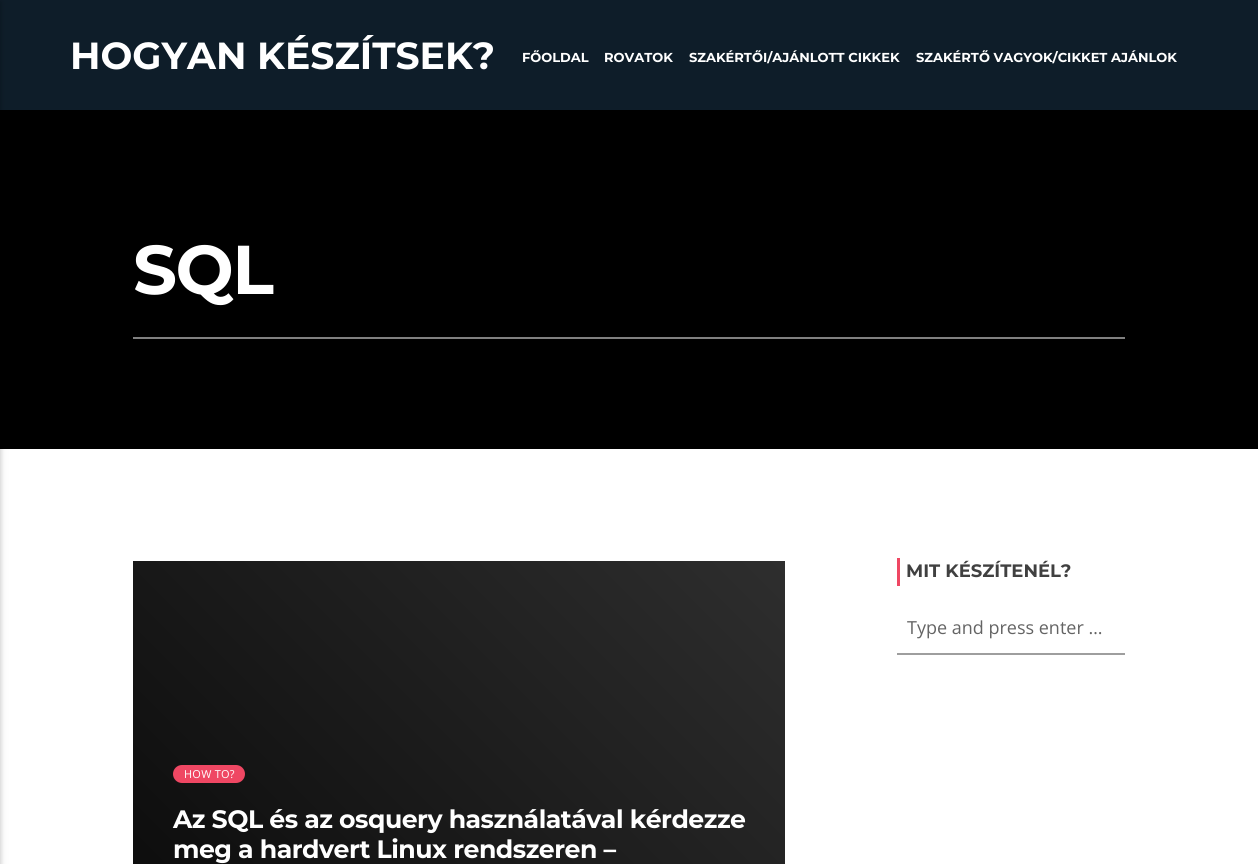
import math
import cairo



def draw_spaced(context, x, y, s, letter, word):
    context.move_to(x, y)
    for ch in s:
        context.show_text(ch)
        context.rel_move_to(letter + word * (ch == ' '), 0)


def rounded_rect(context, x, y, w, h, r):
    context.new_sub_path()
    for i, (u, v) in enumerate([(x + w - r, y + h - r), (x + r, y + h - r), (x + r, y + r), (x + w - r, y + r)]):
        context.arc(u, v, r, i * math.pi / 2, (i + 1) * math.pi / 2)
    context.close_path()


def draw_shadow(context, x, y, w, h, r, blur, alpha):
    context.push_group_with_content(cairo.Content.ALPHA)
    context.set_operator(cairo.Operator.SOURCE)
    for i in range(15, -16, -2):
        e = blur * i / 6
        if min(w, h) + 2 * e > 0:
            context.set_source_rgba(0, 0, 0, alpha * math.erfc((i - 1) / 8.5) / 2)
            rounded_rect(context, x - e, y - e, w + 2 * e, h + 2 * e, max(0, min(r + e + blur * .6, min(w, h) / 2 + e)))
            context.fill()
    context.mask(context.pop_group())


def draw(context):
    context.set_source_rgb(1, 1, 1)
    context.paint()
    context.set_source_rgb(14 / 255, 29 / 255, 41 / 255)
    context.rectangle(0, 0, 1258, 110)
    context.fill()
    context.set_source_rgb(0, 0, 0)
    context.rectangle(0, 110, 1258, 339)
    context.fill()
    context.set_source_rgb(0, 0, 0)
    draw_shadow(context, -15, 2, 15, 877, 0, 5, 0.12)
    draw_shadow(context, -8, 2, 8, 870, 0, 2.5, 0.16)
    context.set_source_rgb(128 / 255, 128 / 255, 128 / 255)
    context.rectangle(133, 337, 992, 2)
    context.fill()
    context.set_source_rgb(239 / 255, 71 / 255, 99 / 255)
    context.rectangle(897, 558, 3, 28)
    context.fill()
    context.set_source_rgb(158 / 255, 158 / 255, 158 / 255)
    context.rectangle(897, 653, 228, 2)
    context.fill()
    gradient = cairo.LinearGradient(203, 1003, 715, 491)
    gradient.add_color_stop_rgba(0, 11 / 255, 11 / 255, 11 / 255, 1)
    gradient.add_color_stop_rgba(1, 46 / 255, 46 / 255, 46 / 255, 1)
    context.set_source(gradient)
    context.rectangle(133, 561, 652, 303)
    context.fill()
    context.set_source_rgb(239 / 255, 71 / 255, 99 / 255)
    rounded_rect(context, 173, 765, 72, 18, 9)
    context.fill()
    context.select_font_face("Montserrat", cairo.FontSlant.NORMAL, cairo.FontWeight.BOLD)
    context.set_font_size(37.75)
    context.set_source_rgb(1, 1, 1)
    context.move_to(70, 69)
    context.show_text("HOGYAN KÉSZÍTSEK?")
    context.set_font_size(13)
    context.move_to(522, 62)
    context.show_text("FŐOLDAL")
    context.move_to(604, 62)
    context.show_text("ROVATOK")
    context.move_to(689, 62)
    context.show_text("SZAKÉRTŐI/AJÁNLOTT CIKKEK")
    context.move_to(916, 62)
    context.show_text("SZAKÉRTŐ VAGYOK/CIKKET AJÁNLOK")
    context.set_font_size(69)
    draw_spaced(context, 133, 294, "SQL", -1.5, 0)
    context.set_font_size(18)
    context.set_source_rgb(64 / 255, 64 / 255, 64 / 255)
    context.move_to(906, 577)
    context.show_text("MIT KÉSZÍTENÉL?")
    context.select_font_face("Open Sans")
    context.set_source_rgb(100 / 255, 100 / 255, 100 / 255)
    context.move_to(907, 634)
    context.show_text("Type and press enter …")
    context.set_font_size(11)
    context.set_source_rgb(1, 1, 1)
    draw_spaced(context, 184, 778, "HOW TO?", 0.25, 0)
    context.select_font_face("Montserrat", cairo.FontSlant.NORMAL, cairo.FontWeight.BOLD)
    context.set_font_size(25.2)
    draw_spaced(context, 173, 828, "Az SQL és az osquery használatával kérdezze", -0.5, 0)
    draw_spaced(context, 173, 858, "meg a hardvert Linux rendszeren –", -0.5, 0)


surface = cairo.ImageSurface(cairo.Format.RGB24, 1258, 864)
context = cairo.Context(surface)
options = cairo.FontOptions()
options.set_hint_metrics(cairo.HintMetrics.OFF)
options.set_hint_style(cairo.HintStyle.NONE)
context.set_font_options(options)
context.set_miter_limit(4)
draw(context)
surface.write_to_png("out.png")
